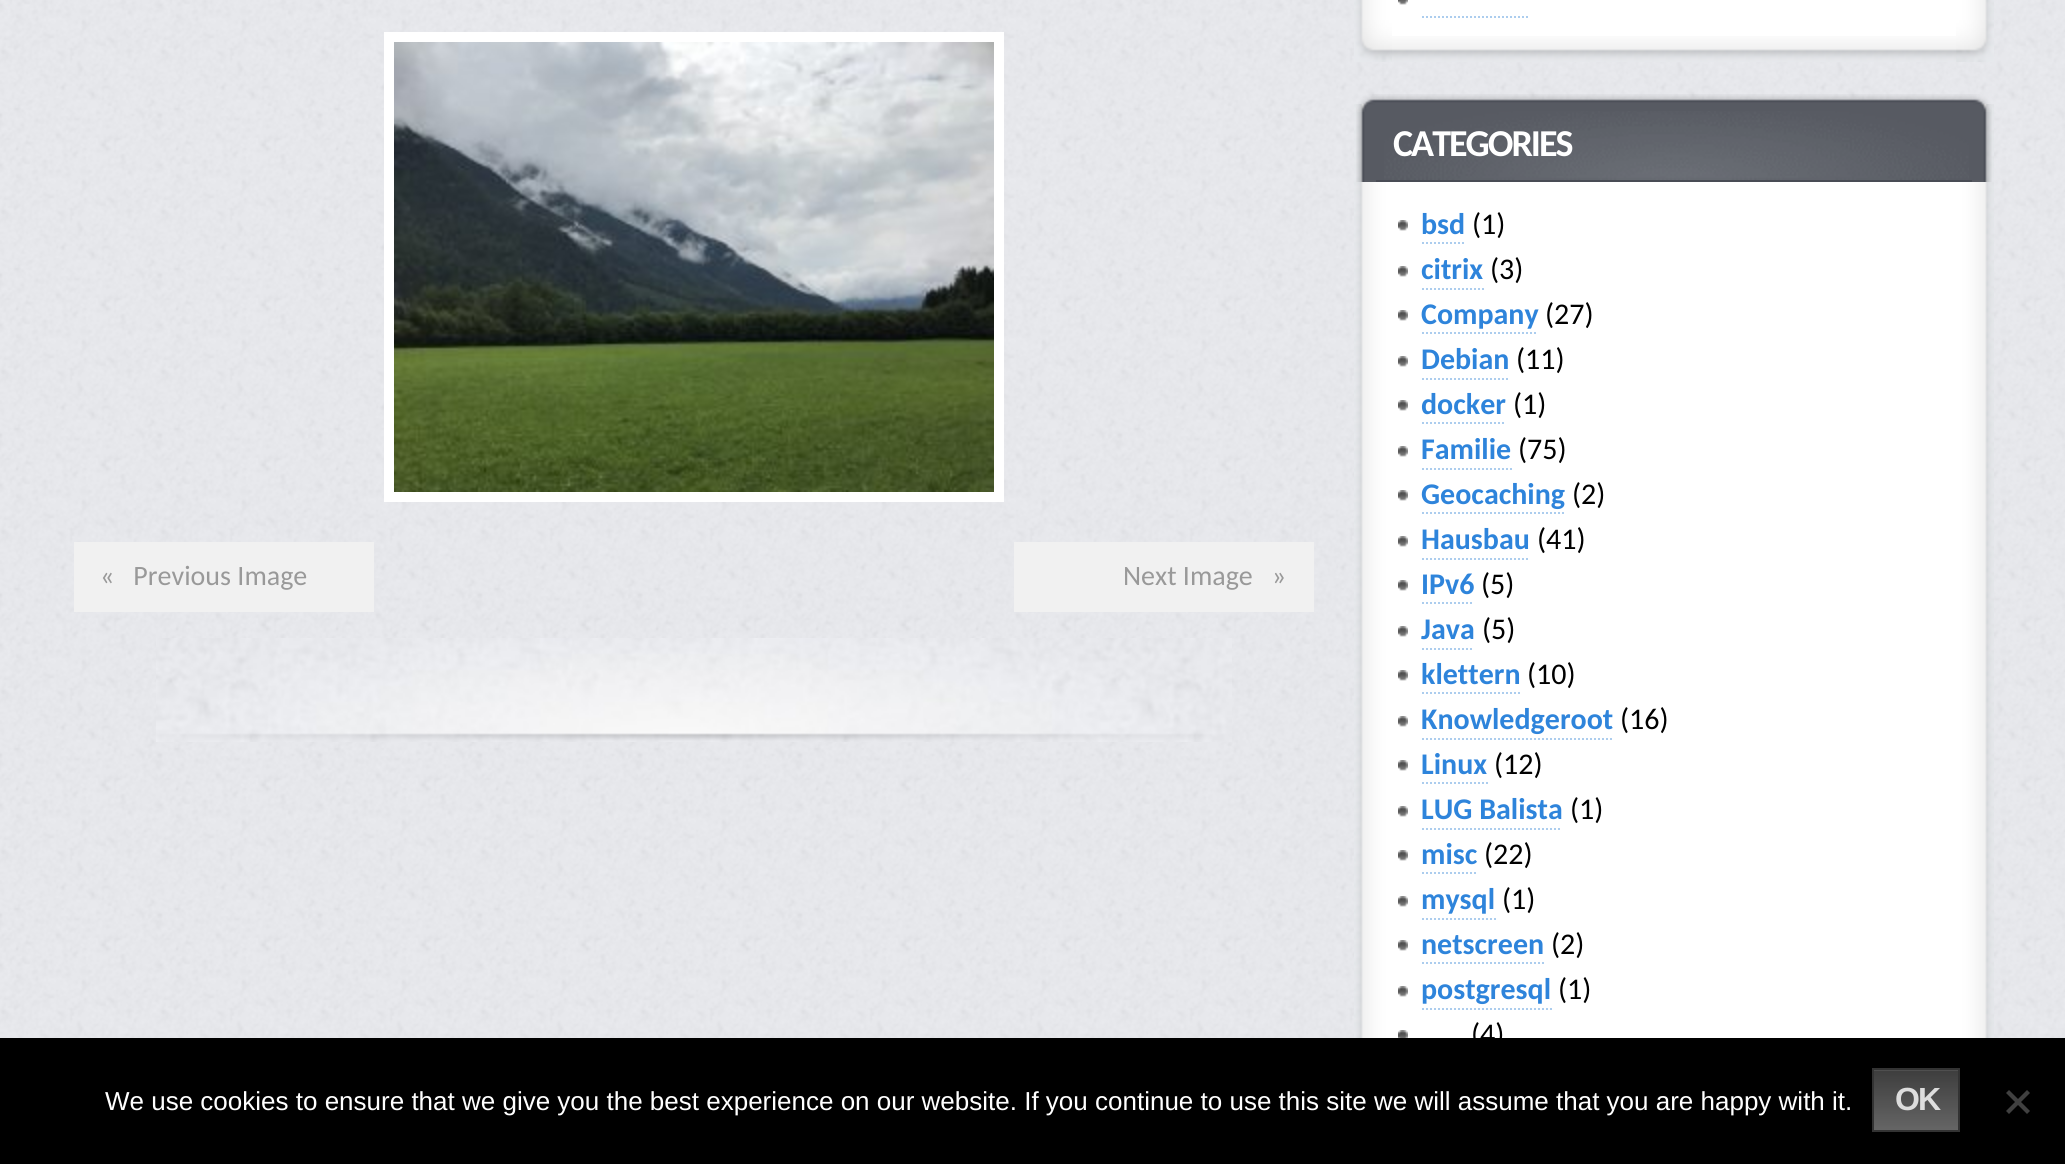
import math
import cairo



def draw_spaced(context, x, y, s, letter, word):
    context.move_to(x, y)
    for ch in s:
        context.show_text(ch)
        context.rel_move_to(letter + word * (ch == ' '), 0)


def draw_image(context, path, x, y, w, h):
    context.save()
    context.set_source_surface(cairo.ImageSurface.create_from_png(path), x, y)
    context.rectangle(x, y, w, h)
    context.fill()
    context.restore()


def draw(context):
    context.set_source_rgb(1, 1, 1)
    context.paint()
    draw_image(context, "images/1.png", 0, 0, 2065, 1038)
    draw_image(context, "images/2.png", 156, 638, 1076, 104)
    context.set_source_rgb(1, 1, 1)
    context.rectangle(384, 32, 620, 470)
    context.fill()
    draw_image(context, "images/3.png", 394, 42, 600, 450)
    context.set_source_rgb(241 / 255, 241 / 255, 241 / 255)
    context.rectangle(74, 542, 300, 70)
    context.fill()
    context.rectangle(1014, 542, 300, 70)
    context.fill()
    draw_image(context, "images/4.png", 1354, 0, 38, 20)
    context.set_source_rgb(1, 1, 1)
    context.rectangle(1392, 0, 564, 36)
    context.fill()
    draw_image(context, "images/5.png", 1398, 0, 10, 5)
    context.new_path()
    context.move_to(1422, 17)
    context.line_to(1530, 17)
    context.set_source_rgb(172 / 255, 205 / 255, 238 / 255)
    context.set_dash([2, 2])
    context.stroke()
    draw_image(context, "images/6.png", 1956, 0, 38, 20)
    draw_image(context, "images/7.png", 1354, 20, 38, 42)
    draw_image(context, "images/8.png", 1392, 36, 564, 26)
    draw_image(context, "images/9.png", 1956, 20, 38, 42)
    draw_image(context, "images/10.png", 1354, 104, 38, 934)
    context.set_source_rgb(1, 1, 1)
    context.rectangle(1392, 182, 564, 856)
    context.fill()
    draw_image(context, "images/11.png", 1356, 94, 20, 18)
    draw_image(context, "images/12.png", 1376, 94, 596, 10)
    draw_image(context, "images/19.png", 1956, 104, 38, 934)
    draw_image(context, "images/13.png", 1972, 94, 20, 18)
    draw_image(context, "images/14.png", 1356, 112, 20, 70)
    context.set_source_rgb(87 / 255, 90 / 255, 98 / 255)
    context.rectangle(1376, 104, 596, 76)
    context.fill()
    draw_image(context, "images/15.png", 1384, 111, 585, 69)
    context.set_source_rgb(73 / 255, 76 / 255, 85 / 255)
    context.rectangle(1376, 180, 596, 2)
    context.fill()
    draw_image(context, "images/16.png", 1972, 112, 20, 70)
    draw_image(context, "images/17.png", 1398, 220, 10, 11)
    context.new_path()
    context.move_to(1422, 243)
    context.line_to(1466, 243)
    context.set_source_rgb(172 / 255, 205 / 255, 238 / 255)
    context.stroke()
    draw_image(context, "images/17.png", 1398, 266, 10, 11)
    context.new_path()
    context.move_to(1422, 289)
    context.line_to(1484, 289)
    context.stroke()
    draw_image(context, "images/17.png", 1398, 310, 10, 11)
    context.new_path()
    context.move_to(1422, 333)
    context.line_to(1538, 333)
    context.stroke()
    draw_image(context, "images/17.png", 1398, 356, 10, 11)
    context.new_path()
    context.move_to(1422, 379)
    context.line_to(1510, 379)
    context.stroke()
    draw_image(context, "images/17.png", 1398, 400, 10, 11)
    context.new_path()
    context.move_to(1422, 423)
    context.line_to(1506, 423)
    context.stroke()
    draw_image(context, "images/17.png", 1398, 446, 10, 11)
    context.new_path()
    context.move_to(1422, 469)
    context.line_to(1512, 469)
    context.stroke()
    draw_image(context, "images/17.png", 1398, 490, 10, 11)
    context.new_path()
    context.move_to(1422, 513)
    context.line_to(1566, 513)
    context.stroke()
    draw_image(context, "images/17.png", 1398, 536, 10, 11)
    context.new_path()
    context.move_to(1422, 559)
    context.line_to(1530, 559)
    context.stroke()
    draw_image(context, "images/17.png", 1398, 580, 10, 11)
    context.new_path()
    context.move_to(1422, 603)
    context.line_to(1474, 603)
    context.stroke()
    draw_image(context, "images/17.png", 1398, 626, 10, 11)
    context.new_path()
    context.move_to(1422, 649)
    context.line_to(1474, 649)
    context.stroke()
    draw_image(context, "images/17.png", 1398, 670, 10, 11)
    context.new_path()
    context.move_to(1422, 693)
    context.line_to(1520, 693)
    context.stroke()
    draw_image(context, "images/17.png", 1398, 716, 10, 11)
    context.new_path()
    context.move_to(1422, 739)
    context.line_to(1614, 739)
    context.stroke()
    draw_image(context, "images/17.png", 1398, 760, 10, 11)
    context.new_path()
    context.move_to(1422, 783)
    context.line_to(1488, 783)
    context.stroke()
    draw_image(context, "images/17.png", 1398, 806, 10, 11)
    context.new_path()
    context.move_to(1422, 829)
    context.line_to(1562, 829)
    context.stroke()
    draw_image(context, "images/17.png", 1398, 850, 10, 11)
    context.new_path()
    context.move_to(1422, 873)
    context.line_to(1478, 873)
    context.stroke()
    draw_image(context, "images/17.png", 1398, 896, 10, 11)
    context.new_path()
    context.move_to(1422, 919)
    context.line_to(1496, 919)
    context.stroke()
    draw_image(context, "images/17.png", 1398, 940, 10, 11)
    context.new_path()
    context.move_to(1422, 963)
    context.line_to(1544, 963)
    context.stroke()
    draw_image(context, "images/17.png", 1398, 986, 10, 11)
    context.new_path()
    context.move_to(1422, 1009)
    context.line_to(1552, 1009)
    context.stroke()
    draw_image(context, "images/18.png", 1398, 1030, 10, 8)
    context.set_source_rgb(0, 0, 0)
    context.rectangle(0, 1038, 2065, 126)
    context.fill()
    draw_image(context, "images/20.png", 1874, 1070, 84, 60)
    context.rectangle(1873, 1069, 86, 62)
    context.set_source_rgb(51 / 255, 51 / 255, 51 / 255)
    context.set_dash([])
    context.stroke()
    context.set_source_rgb(64 / 255, 64 / 255, 64 / 255)
    context.new_path()
    context.move_to(2027, 1090)
    context.line_to(2030, 1093)
    context.line_to(2009, 1114)
    context.line_to(2006, 1111)
    context.close_path()
    context.fill()
    context.new_path()
    context.move_to(2006, 1093)
    context.line_to(2009, 1090)
    context.line_to(2030, 1111)
    context.line_to(2027, 1114)
    context.close_path()
    context.fill()
    context.select_font_face("Carlito")
    context.set_font_size(28)
    context.set_source_rgb(153 / 255, 153 / 255, 153 / 255)
    context.move_to(100, 585)
    context.show_text("«   Previous Image")
    context.move_to(1123, 585)
    context.show_text("Next Image   »")
    context.select_font_face("Carlito", cairo.FontSlant.NORMAL, cairo.FontWeight.BOLD)
    context.set_font_size(38)
    context.set_source_rgb(1, 1, 1)
    draw_spaced(context, 1393, 156, "CATEGORIES", -2, 0)
    context.set_font_size(30)
    context.set_source_rgb(46 / 255, 132 / 255, 219 / 255)
    context.move_to(1421, 234)
    context.show_text("bsd")
    context.select_font_face("Carlito")
    context.set_source_rgb(0, 0, 0)
    context.move_to(1472, 234)
    context.show_text("(1)")
    context.select_font_face("Carlito", cairo.FontSlant.NORMAL, cairo.FontWeight.BOLD)
    context.set_source_rgb(46 / 255, 132 / 255, 219 / 255)
    context.move_to(1421, 279)
    context.show_text("citrix")
    context.select_font_face("Carlito")
    context.set_source_rgb(0, 0, 0)
    context.move_to(1490, 279)
    context.show_text("(3)")
    context.select_font_face("Carlito", cairo.FontSlant.NORMAL, cairo.FontWeight.BOLD)
    context.set_source_rgb(46 / 255, 132 / 255, 219 / 255)
    context.move_to(1421, 324)
    context.show_text("Company")
    context.select_font_face("Carlito")
    context.set_source_rgb(0, 0, 0)
    context.move_to(1545, 324)
    context.show_text("(27)")
    context.select_font_face("Carlito", cairo.FontSlant.NORMAL, cairo.FontWeight.BOLD)
    context.set_source_rgb(46 / 255, 132 / 255, 219 / 255)
    context.move_to(1421, 369)
    context.show_text("Debian")
    context.select_font_face("Carlito")
    context.set_source_rgb(0, 0, 0)
    context.move_to(1516, 369)
    context.show_text("(11)")
    context.select_font_face("Carlito", cairo.FontSlant.NORMAL, cairo.FontWeight.BOLD)
    context.set_source_rgb(46 / 255, 132 / 255, 219 / 255)
    context.move_to(1421, 414)
    context.show_text("docker")
    context.select_font_face("Carlito")
    context.set_source_rgb(0, 0, 0)
    context.move_to(1513, 414)
    context.show_text("(1)")
    context.select_font_face("Carlito", cairo.FontSlant.NORMAL, cairo.FontWeight.BOLD)
    context.set_source_rgb(46 / 255, 132 / 255, 219 / 255)
    context.move_to(1421, 459)
    context.show_text("Familie")
    context.select_font_face("Carlito")
    context.set_source_rgb(0, 0, 0)
    context.move_to(1518, 459)
    context.show_text("(75)")
    context.select_font_face("Carlito", cairo.FontSlant.NORMAL, cairo.FontWeight.BOLD)
    context.set_source_rgb(46 / 255, 132 / 255, 219 / 255)
    context.move_to(1421, 504)
    context.show_text("Geocaching")
    context.select_font_face("Carlito")
    context.set_source_rgb(0, 0, 0)
    context.move_to(1572, 504)
    context.show_text("(2)")
    context.select_font_face("Carlito", cairo.FontSlant.NORMAL, cairo.FontWeight.BOLD)
    context.set_source_rgb(46 / 255, 132 / 255, 219 / 255)
    context.move_to(1421, 549)
    context.show_text("Hausbau")
    context.select_font_face("Carlito")
    context.set_source_rgb(0, 0, 0)
    context.move_to(1537, 549)
    context.show_text("(41)")
    context.select_font_face("Carlito", cairo.FontSlant.NORMAL, cairo.FontWeight.BOLD)
    context.set_source_rgb(46 / 255, 132 / 255, 219 / 255)
    context.move_to(1421, 594)
    context.show_text("IPv6")
    context.select_font_face("Carlito")
    context.set_source_rgb(0, 0, 0)
    context.move_to(1481, 594)
    context.show_text("(5)")
    context.select_font_face("Carlito", cairo.FontSlant.NORMAL, cairo.FontWeight.BOLD)
    context.set_source_rgb(46 / 255, 132 / 255, 219 / 255)
    context.move_to(1421, 639)
    context.show_text("Java")
    context.select_font_face("Carlito")
    context.set_source_rgb(0, 0, 0)
    context.move_to(1482, 639)
    context.show_text("(5)")
    context.select_font_face("Carlito", cairo.FontSlant.NORMAL, cairo.FontWeight.BOLD)
    context.set_source_rgb(46 / 255, 132 / 255, 219 / 255)
    context.move_to(1421, 684)
    context.show_text("klettern")
    context.select_font_face("Carlito")
    context.set_source_rgb(0, 0, 0)
    context.move_to(1527, 684)
    context.show_text("(10)")
    context.select_font_face("Carlito", cairo.FontSlant.NORMAL, cairo.FontWeight.BOLD)
    context.set_source_rgb(46 / 255, 132 / 255, 219 / 255)
    context.move_to(1421, 729)
    context.show_text("Knowledgeroot")
    context.select_font_face("Carlito")
    context.set_source_rgb(0, 0, 0)
    context.move_to(1620, 729)
    context.show_text("(16)")
    context.select_font_face("Carlito", cairo.FontSlant.NORMAL, cairo.FontWeight.BOLD)
    context.set_source_rgb(46 / 255, 132 / 255, 219 / 255)
    context.move_to(1421, 774)
    context.show_text("Linux")
    context.select_font_face("Carlito")
    context.set_source_rgb(0, 0, 0)
    context.move_to(1494, 774)
    context.show_text("(12)")
    context.select_font_face("Carlito", cairo.FontSlant.NORMAL, cairo.FontWeight.BOLD)
    context.set_source_rgb(46 / 255, 132 / 255, 219 / 255)
    context.move_to(1421, 819)
    context.show_text("LUG Balista")
    context.select_font_face("Carlito")
    context.set_source_rgb(0, 0, 0)
    context.move_to(1570, 819)
    context.show_text("(1)")
    context.select_font_face("Carlito", cairo.FontSlant.NORMAL, cairo.FontWeight.BOLD)
    context.set_source_rgb(46 / 255, 132 / 255, 219 / 255)
    context.move_to(1421, 864)
    context.show_text("misc")
    context.select_font_face("Carlito")
    context.set_source_rgb(0, 0, 0)
    context.move_to(1484, 864)
    context.show_text("(22)")
    context.select_font_face("Carlito", cairo.FontSlant.NORMAL, cairo.FontWeight.BOLD)
    context.set_source_rgb(46 / 255, 132 / 255, 219 / 255)
    context.move_to(1421, 909)
    context.show_text("mysql")
    context.select_font_face("Carlito")
    context.set_source_rgb(0, 0, 0)
    context.move_to(1502, 909)
    context.show_text("(1)")
    context.select_font_face("Carlito", cairo.FontSlant.NORMAL, cairo.FontWeight.BOLD)
    context.set_source_rgb(46 / 255, 132 / 255, 219 / 255)
    context.move_to(1421, 954)
    context.show_text("netscreen")
    context.select_font_face("Carlito")
    context.set_source_rgb(0, 0, 0)
    context.move_to(1551, 954)
    context.show_text("(2)")
    context.select_font_face("Carlito", cairo.FontSlant.NORMAL, cairo.FontWeight.BOLD)
    context.set_source_rgb(46 / 255, 132 / 255, 219 / 255)
    context.move_to(1421, 999)
    context.show_text("postgresql")
    context.select_font_face("Carlito")
    context.set_source_rgb(0, 0, 0)
    context.move_to(1558, 999)
    context.show_text("(1)")
    context.move_to(1471, 1044)
    context.show_text("(4)")
    context.select_font_face("Liberation Sans")
    context.set_font_size(26)
    context.set_source_rgb(1, 1, 1)
    context.move_to(105, 1110)
    context.show_text("We use cookies to ensure that we give you the best experience on our website. If you continue to use this site we will assume that you are happy with it.")
    context.select_font_face("Liberation Sans", cairo.FontSlant.NORMAL, cairo.FontWeight.BOLD)
    context.set_font_size(32)
    context.set_source_rgb(221 / 255, 221 / 255, 221 / 255)
    draw_spaced(context, 1895, 1110, "OK", -2, 0)


surface = cairo.ImageSurface(cairo.Format.RGB24, 2065, 1164)
context = cairo.Context(surface)
options = cairo.FontOptions()
options.set_hint_metrics(cairo.HintMetrics.OFF)
options.set_hint_style(cairo.HintStyle.NONE)
context.set_font_options(options)
context.set_miter_limit(4)
draw(context)
surface.write_to_png("out.png")
